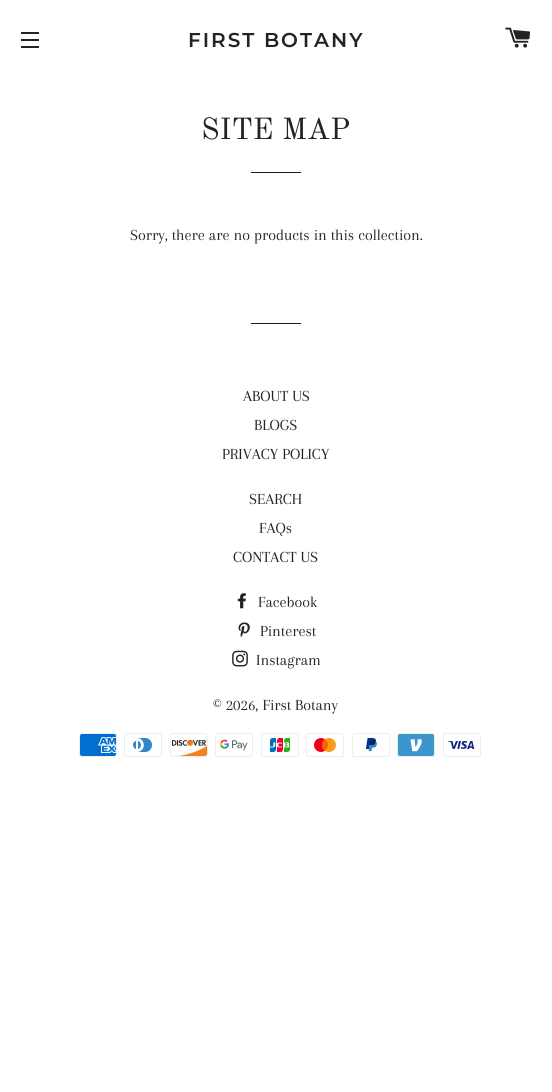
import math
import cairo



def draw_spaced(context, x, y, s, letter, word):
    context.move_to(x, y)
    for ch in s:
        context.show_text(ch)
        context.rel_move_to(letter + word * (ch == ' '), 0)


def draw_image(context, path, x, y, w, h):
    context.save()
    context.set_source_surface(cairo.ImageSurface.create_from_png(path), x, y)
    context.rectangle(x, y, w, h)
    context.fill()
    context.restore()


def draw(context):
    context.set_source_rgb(1, 1, 1)
    context.paint()
    context.set_source_rgb(34 / 255, 35 / 255, 35 / 255)
    context.rectangle(21, 32, 18, 2)
    context.fill()
    context.rectangle(21, 39, 18, 2)
    context.fill()
    context.rectangle(21, 46, 18, 2)
    context.fill()
    draw_image(context, "images/1.png", 505, 27, 26, 21)
    context.set_source_rgb(28 / 255, 29 / 255, 29 / 255)
    context.rectangle(251, 172, 50, 1)
    context.fill()
    context.rectangle(251, 323, 50, 1)
    context.fill()
    draw_image(context, "images/2.png", 237, 593, 9, 16)
    draw_image(context, "images/3.png", 238, 622, 12, 16)
    draw_image(context, "images/4.png", 232, 650, 16, 17)
    draw_image(context, "images/5.png", 79, 733, 38, 24)
    draw_image(context, "images/6.png", 124, 733, 38, 24)
    draw_image(context, "images/7.png", 170, 733, 38, 24)
    draw_image(context, "images/8.png", 215, 733, 38, 24)
    draw_image(context, "images/9.png", 261, 733, 38, 24)
    draw_image(context, "images/10.png", 306, 733, 38, 24)
    draw_image(context, "images/11.png", 352, 733, 38, 24)
    draw_image(context, "images/12.png", 397, 733, 38, 24)
    draw_image(context, "images/13.png", 443, 733, 38, 24)
    context.select_font_face("Montserrat SemiBold")
    context.set_font_size(20)
    context.set_source_rgb(34 / 255, 35 / 255, 35 / 255)
    draw_spaced(context, 188, 47, "FIRST BOTANY", 2, 0)
    context.select_font_face("Old Standard TT")
    context.set_font_size(30)
    context.move_to(201, 139)
    context.show_text("SITE MAP")
    context.select_font_face("Arapey")
    context.set_font_size(16)
    context.move_to(130, 240)
    context.show_text("Sorry, there are no products in this collection.")
    context.move_to(243, 401)
    context.show_text("ABOUT US")
    context.move_to(254, 430)
    context.show_text("BLOGS")
    context.move_to(222, 459)
    context.show_text("PRIVACY POLICY")
    context.move_to(249, 504)
    context.show_text("SEARCH")
    context.move_to(259, 533)
    context.show_text("FAQs")
    context.move_to(233, 562)
    context.show_text("CONTACT US")
    context.move_to(258, 607)
    context.show_text("Facebook")
    context.move_to(260, 636)
    context.show_text("Pinterest")
    context.move_to(256, 665)
    context.show_text("Instagram")
    context.move_to(213, 710)
    context.show_text("© 2026, First Botany")


surface = cairo.ImageSurface(cairo.Format.RGB24, 552, 1092)
context = cairo.Context(surface)
options = cairo.FontOptions()
options.set_hint_metrics(cairo.HintMetrics.OFF)
options.set_hint_style(cairo.HintStyle.NONE)
context.set_font_options(options)
context.set_miter_limit(4)
draw(context)
surface.write_to_png("out.png")
